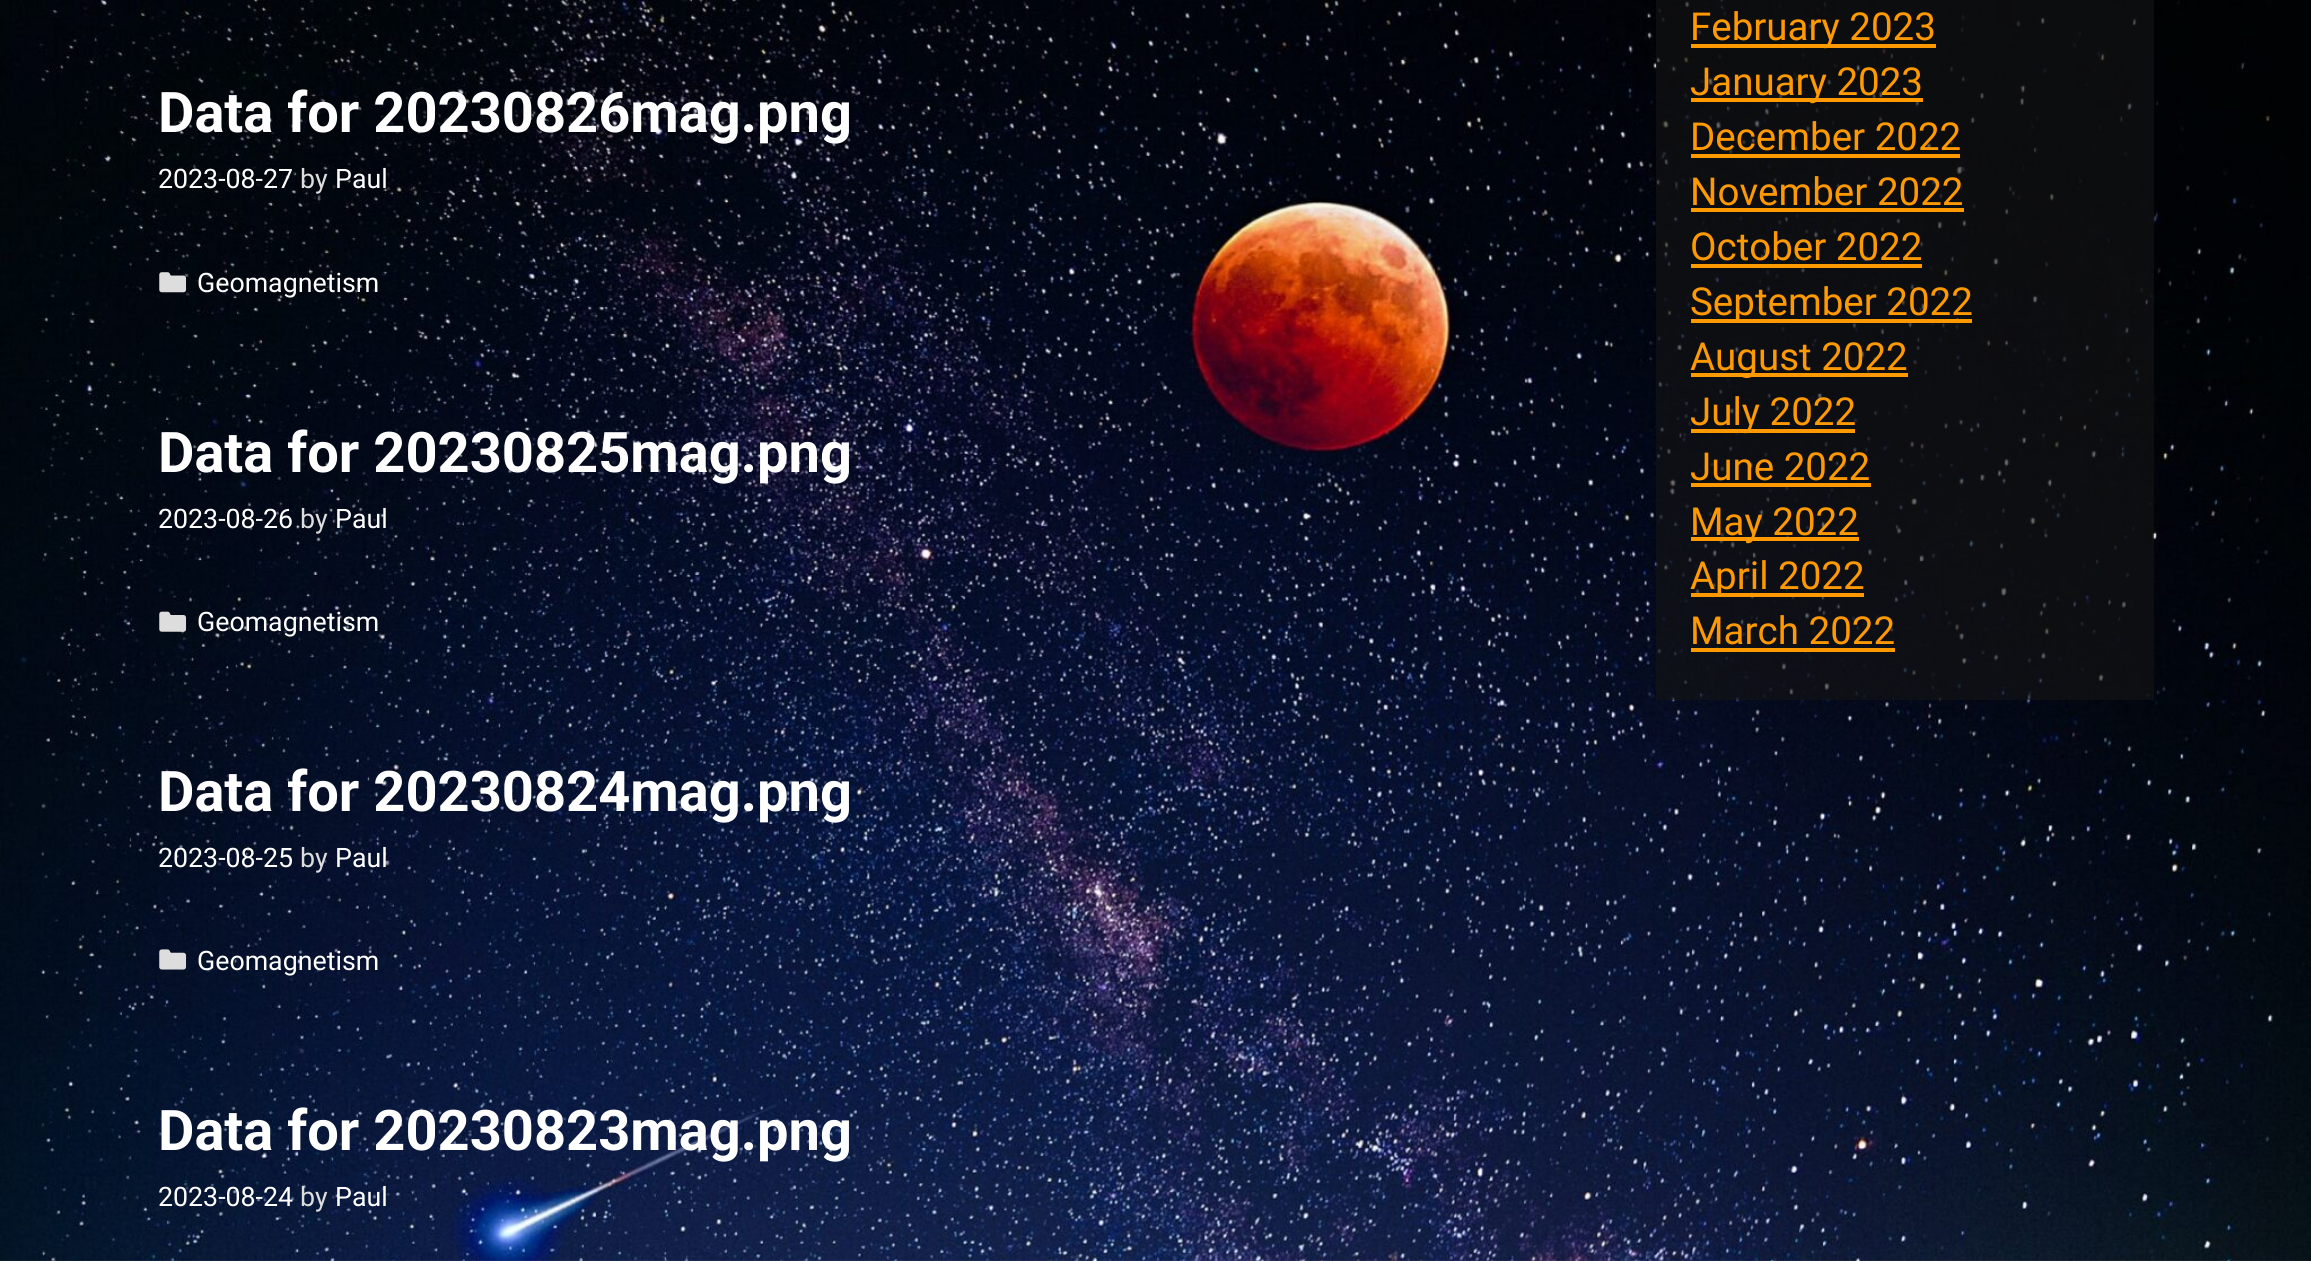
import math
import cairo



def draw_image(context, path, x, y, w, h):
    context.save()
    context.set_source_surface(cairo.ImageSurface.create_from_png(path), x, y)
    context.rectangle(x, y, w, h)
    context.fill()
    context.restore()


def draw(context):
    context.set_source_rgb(1, 1, 1)
    context.paint()
    draw_image(context, "images/1.png", 0, 0, 2311, 1261)
    draw_image(context, "images/2.png", 159, 272, 28, 21)
    draw_image(context, "images/3.png", 159, 611, 28, 21)
    draw_image(context, "images/4.png", 159, 949, 28, 21)
    context.set_source_rgba(21 / 255, 21 / 255, 21 / 255, 0.61)
    context.rectangle(1656, 0, 498, 700)
    context.fill()
    context.set_source_rgb(1, 153 / 255, 0)
    context.rectangle(1691, 44, 245, 4)
    context.fill()
    context.rectangle(1691, 98, 232, 4)
    context.fill()
    context.rectangle(1691, 154, 269, 4)
    context.fill()
    context.rectangle(1691, 208, 273, 4)
    context.fill()
    context.rectangle(1691, 264, 231, 4)
    context.fill()
    context.rectangle(1691, 319, 281, 4)
    context.fill()
    context.rectangle(1691, 373, 217, 4)
    context.fill()
    context.rectangle(1691, 429, 164, 4)
    context.fill()
    context.rectangle(1691, 483, 180, 4)
    context.fill()
    context.rectangle(1691, 537, 168, 4)
    context.fill()
    context.rectangle(1691, 593, 173, 4)
    context.fill()
    context.rectangle(1691, 648, 204, 4)
    context.fill()
    context.select_font_face("Roboto", cairo.FontSlant.NORMAL, cairo.FontWeight.BOLD)
    context.set_font_size(56)
    context.set_source_rgb(1, 1, 1)
    context.move_to(158, 132)
    context.show_text("Data for 20230826mag.png")
    context.select_font_face("Roboto")
    context.set_font_size(26.75)
    context.move_to(158, 188)
    context.show_text("2023-08-27")
    context.set_source_rgb(221 / 255, 221 / 255, 221 / 255)
    context.move_to(300, 188)
    context.show_text("by")
    context.set_source_rgb(1, 1, 1)
    context.move_to(335, 188)
    context.show_text("Paul")
    context.move_to(197, 292)
    context.show_text("Geomagnetism")
    context.select_font_face("Roboto", cairo.FontSlant.NORMAL, cairo.FontWeight.BOLD)
    context.set_font_size(56)
    context.move_to(158, 472)
    context.show_text("Data for 20230825mag.png")
    context.select_font_face("Roboto")
    context.set_font_size(26.75)
    context.move_to(158, 528)
    context.show_text("2023-08-26")
    context.set_source_rgb(221 / 255, 221 / 255, 221 / 255)
    context.move_to(300, 528)
    context.show_text("by")
    context.set_source_rgb(1, 1, 1)
    context.move_to(335, 528)
    context.show_text("Paul")
    context.move_to(197, 631)
    context.show_text("Geomagnetism")
    context.select_font_face("Roboto", cairo.FontSlant.NORMAL, cairo.FontWeight.BOLD)
    context.set_font_size(56)
    context.move_to(158, 811)
    context.show_text("Data for 20230824mag.png")
    context.select_font_face("Roboto")
    context.set_font_size(26.75)
    context.move_to(158, 867)
    context.show_text("2023-08-25")
    context.set_source_rgb(221 / 255, 221 / 255, 221 / 255)
    context.move_to(300, 867)
    context.show_text("by")
    context.set_source_rgb(1, 1, 1)
    context.move_to(335, 867)
    context.show_text("Paul")
    context.move_to(197, 970)
    context.show_text("Geomagnetism")
    context.select_font_face("Roboto", cairo.FontSlant.NORMAL, cairo.FontWeight.BOLD)
    context.set_font_size(56)
    context.move_to(158, 1150)
    context.show_text("Data for 20230823mag.png")
    context.select_font_face("Roboto")
    context.set_font_size(26.75)
    context.move_to(158, 1206)
    context.show_text("2023-08-24")
    context.set_source_rgb(221 / 255, 221 / 255, 221 / 255)
    context.move_to(300, 1206)
    context.show_text("by")
    context.set_source_rgb(1, 1, 1)
    context.move_to(335, 1206)
    context.show_text("Paul")
    context.set_font_size(38.5)
    context.set_source_rgb(1, 153 / 255, 0)
    context.move_to(1690, 40)
    context.show_text("February 2023")
    context.move_to(1690, 95)
    context.show_text("January 2023")
    context.move_to(1690, 150)
    context.show_text("December 2022")
    context.move_to(1690, 205)
    context.show_text("November 2022")
    context.move_to(1690, 260)
    context.show_text("October 2022")
    context.move_to(1690, 315)
    context.show_text("September 2022")
    context.move_to(1690, 370)
    context.show_text("August 2022")
    context.move_to(1690, 425)
    context.show_text("July 2022")
    context.move_to(1690, 480)
    context.show_text("June 2022")
    context.move_to(1690, 535)
    context.show_text("May 2022")
    context.move_to(1690, 589)
    context.show_text("April 2022")
    context.move_to(1690, 644)
    context.show_text("March 2022")


surface = cairo.ImageSurface(cairo.Format.RGB24, 2311, 1261)
context = cairo.Context(surface)
options = cairo.FontOptions()
options.set_hint_metrics(cairo.HintMetrics.OFF)
options.set_hint_style(cairo.HintStyle.NONE)
context.set_font_options(options)
context.set_miter_limit(4)
draw(context)
surface.write_to_png("out.png")
